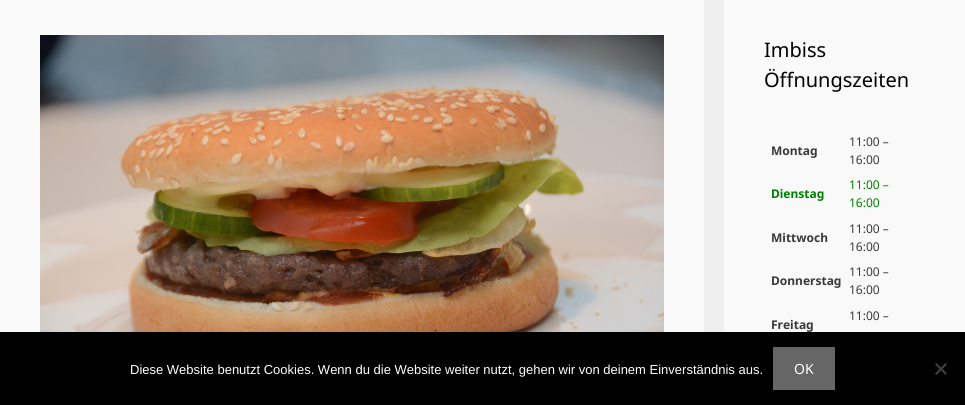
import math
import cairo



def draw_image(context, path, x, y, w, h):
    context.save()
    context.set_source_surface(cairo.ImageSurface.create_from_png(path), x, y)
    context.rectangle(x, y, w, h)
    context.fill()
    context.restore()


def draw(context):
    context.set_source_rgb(239 / 255, 239 / 255, 239 / 255)
    context.paint()
    context.set_source_rgb(249 / 255, 249 / 255, 249 / 255)
    context.rectangle(0, 0, 704, 332)
    context.fill()
    draw_image(context, "images/1.png", 40, 35, 624, 297)
    context.rectangle(724, 0, 241, 332)
    context.fill()
    context.set_source_rgb(0, 0, 0)
    context.rectangle(0, 332, 965, 73)
    context.fill()
    context.set_source_rgb(102 / 255, 102 / 255, 102 / 255)
    context.rectangle(773, 347, 62, 43)
    context.fill()
    context.set_source_rgb(64 / 255, 64 / 255, 64 / 255)
    context.new_path()
    context.move_to(945.5, 363)
    context.line_to(947, 364.5)
    context.line_to(936.5, 375)
    context.line_to(935, 373.5)
    context.close_path()
    context.fill()
    context.new_path()
    context.move_to(935, 364.5)
    context.line_to(936.5, 363)
    context.line_to(947, 373.5)
    context.line_to(945.5, 375)
    context.close_path()
    context.fill()
    context.select_font_face("Noto Sans")
    context.set_font_size(20)
    context.set_source_rgb(0, 0, 0)
    context.move_to(764, 57)
    context.show_text("Imbiss")
    context.move_to(764, 87)
    context.show_text("Öffnungszeiten")
    context.select_font_face("Noto Sans", cairo.FontSlant.NORMAL, cairo.FontWeight.BOLD)
    context.set_font_size(12)
    context.set_source_rgb(58 / 255, 58 / 255, 58 / 255)
    context.move_to(771, 155)
    context.show_text("Montag")
    context.select_font_face("Noto Sans")
    context.move_to(849, 146)
    context.show_text("11:00 –")
    context.move_to(849, 164)
    context.show_text("16:00")
    context.select_font_face("Noto Sans", cairo.FontSlant.NORMAL, cairo.FontWeight.BOLD)
    context.set_source_rgb(0, 128 / 255, 0)
    context.move_to(771, 198)
    context.show_text("Dienstag")
    context.select_font_face("Noto Sans")
    context.move_to(849, 189)
    context.show_text("11:00 –")
    context.move_to(849, 207)
    context.show_text("16:00")
    context.select_font_face("Noto Sans", cairo.FontSlant.NORMAL, cairo.FontWeight.BOLD)
    context.set_source_rgb(58 / 255, 58 / 255, 58 / 255)
    context.move_to(771, 242)
    context.show_text("Mittwoch")
    context.select_font_face("Noto Sans")
    context.move_to(849, 233)
    context.show_text("11:00 –")
    context.move_to(849, 251)
    context.show_text("16:00")
    context.select_font_face("Noto Sans", cairo.FontSlant.NORMAL, cairo.FontWeight.BOLD)
    context.move_to(771, 285)
    context.show_text("Donnerstag")
    context.select_font_face("Noto Sans")
    context.move_to(849, 276)
    context.show_text("11:00 –")
    context.move_to(849, 294)
    context.show_text("16:00")
    context.move_to(849, 320)
    context.show_text("11:00 –")
    context.select_font_face("Noto Sans", cairo.FontSlant.NORMAL, cairo.FontWeight.BOLD)
    context.move_to(771, 329)
    context.show_text("Freitag")
    context.select_font_face("Liberation Sans")
    context.set_font_size(13)
    context.set_source_rgb(1, 1, 1)
    context.move_to(130, 374)
    context.show_text("Diese Website benutzt Cookies. Wenn du die Website weiter nutzt, gehen wir von deinem Einverständnis aus.")
    context.select_font_face("Noto Sans")
    context.set_font_size(14)
    context.move_to(794, 374)
    context.show_text("OK")


surface = cairo.ImageSurface(cairo.Format.RGB24, 965, 405)
context = cairo.Context(surface)
options = cairo.FontOptions()
options.set_hint_metrics(cairo.HintMetrics.OFF)
options.set_hint_style(cairo.HintStyle.NONE)
context.set_font_options(options)
context.set_miter_limit(4)
draw(context)
surface.write_to_png("out.png")
